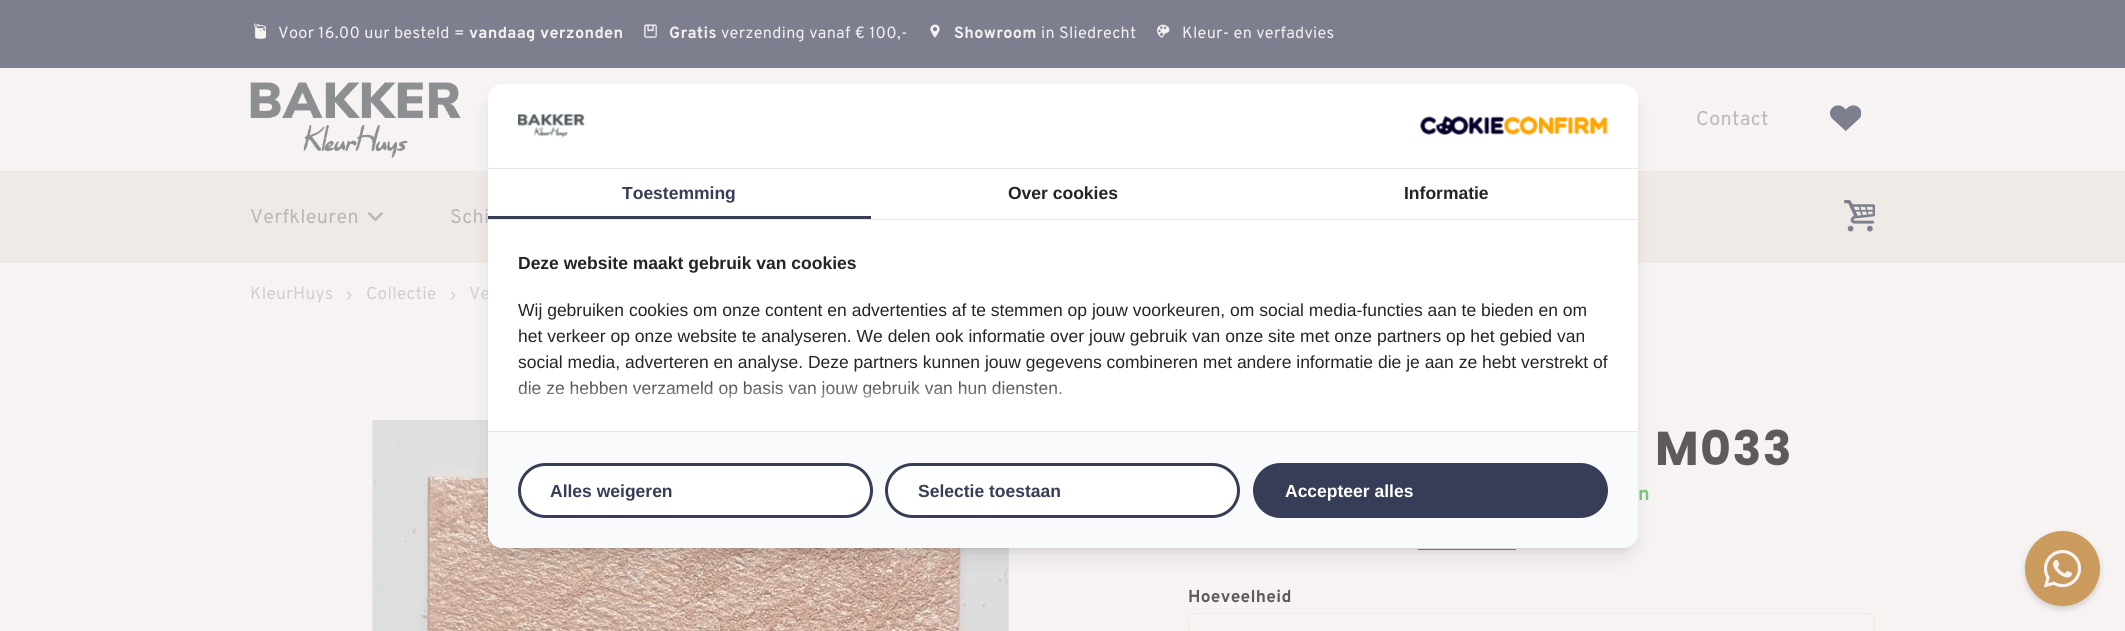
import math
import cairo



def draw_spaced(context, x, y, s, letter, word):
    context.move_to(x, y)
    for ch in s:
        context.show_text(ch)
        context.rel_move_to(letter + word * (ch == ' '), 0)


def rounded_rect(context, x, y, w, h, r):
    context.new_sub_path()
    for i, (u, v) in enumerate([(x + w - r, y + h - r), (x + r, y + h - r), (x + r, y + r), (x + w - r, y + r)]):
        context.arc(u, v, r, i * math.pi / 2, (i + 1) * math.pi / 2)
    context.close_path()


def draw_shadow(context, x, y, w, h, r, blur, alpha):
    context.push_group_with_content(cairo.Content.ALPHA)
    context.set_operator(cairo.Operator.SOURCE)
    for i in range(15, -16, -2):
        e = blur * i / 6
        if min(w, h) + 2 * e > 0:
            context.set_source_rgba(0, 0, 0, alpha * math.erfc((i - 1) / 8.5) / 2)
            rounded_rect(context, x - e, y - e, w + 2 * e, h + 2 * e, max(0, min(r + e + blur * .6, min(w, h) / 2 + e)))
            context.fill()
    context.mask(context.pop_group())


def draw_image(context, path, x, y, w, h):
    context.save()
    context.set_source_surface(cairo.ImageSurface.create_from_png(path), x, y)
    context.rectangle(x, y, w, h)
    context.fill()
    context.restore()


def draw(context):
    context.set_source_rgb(247 / 255, 243 / 255, 243 / 255)
    context.paint()
    context.set_source_rgb(126 / 255, 127 / 255, 142 / 255)
    context.rectangle(0, 0, 2125, 68)
    context.fill()
    draw_image(context, "images/1.png", 254, 23, 12, 17)
    draw_image(context, "images/2.png", 644, 24, 13, 14)
    draw_image(context, "images/3.png", 930, 24, 10, 14)
    draw_image(context, "images/4.png", 1157, 24, 13, 14)
    draw_image(context, "images/5.png", 250, 82, 211, 76)
    draw_image(context, "images/6.png", 1830, 105, 31, 26)
    context.set_source_rgb(240 / 255, 234 / 255, 230 / 255)
    context.rectangle(0, 171, 2125, 92)
    context.fill()
    draw_image(context, "images/7.png", 368, 212, 15, 10)
    draw_image(context, "images/8.png", 1844, 200, 31, 32)
    draw_image(context, "images/9.png", 346, 291, 6, 9)
    draw_image(context, "images/10.png", 450, 291, 6, 9)
    draw_image(context, "images/11.png", 372, 420, 637, 211)
    context.set_source_rgb(126 / 255, 127 / 255, 142 / 255)
    context.rectangle(1418, 549, 98, 1)
    context.fill()
    rounded_rect(context, 1188.5, 613.5, 686, 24, 5.5)
    context.set_source_rgb(240 / 255, 234 / 255, 230 / 255)
    context.set_line_width(1)
    context.stroke()
    context.set_source_rgb(0, 0, 0)
    draw_shadow(context, 493, 94, 1140, 454, 10, 4, 0.1)
    draw_shadow(context, 491, 100, 1143, 456, 11, 9.5, 0.1)
    context.set_source_rgb(94 / 255, 90 / 255, 90 / 255)
    draw_shadow(context, 2025, 534, 75, 75, 37.5, 3, 0.25)
    context.set_source_rgb(202 / 255, 155 / 255, 92 / 255)
    context.arc(2062.5, 568.5, 37.5, 0, 2 * math.pi)
    context.fill()
    draw_image(context, "images/14.png", 2044, 550, 37, 38)
    context.select_font_face("Overpass")
    context.set_font_size(16.25)
    context.set_source_rgb(243 / 255, 240 / 255, 240 / 255)
    draw_spaced(context, 278, 38, "Voor 16.00 uur besteld =", 0.3, 0)
    context.select_font_face("Overpass", cairo.FontSlant.NORMAL, cairo.FontWeight.BOLD)
    draw_spaced(context, 469, 38, "vandaag verzonden", 0.3, 0)
    draw_spaced(context, 669, 38, "Gratis", 0.3, 0)
    context.select_font_face("Overpass")
    draw_spaced(context, 721, 38, "verzending vanaf € 100,-", 0.3, 0)
    context.select_font_face("Overpass", cairo.FontSlant.NORMAL, cairo.FontWeight.BOLD)
    draw_spaced(context, 954, 38, "Showroom", 0.3, 0)
    context.select_font_face("Overpass")
    draw_spaced(context, 1041, 38, "in Sliedrecht", 0.3, 0)
    draw_spaced(context, 1182, 38, "Kleur- en verfadvies", 0.3, 0)
    context.set_font_size(19.75)
    context.set_source_rgb(187 / 255, 183 / 255, 183 / 255)
    draw_spaced(context, 1696, 125, "Contact", 0.4, 0)
    draw_spaced(context, 250, 223, "Verfkleuren", 0.4, 0)
    draw_spaced(context, 450, 223, "Schi", 0.4, 0)
    context.set_font_size(17.25)
    context.set_source_rgb(209 / 255, 206 / 255, 206 / 255)
    draw_spaced(context, 250, 299, "KleurHuys", 0.3, 0)
    draw_spaced(context, 366, 299, "Collectie", 0.3, 0)
    draw_spaced(context, 469, 299, "Ve", 0.3, 0)
    context.select_font_face("Poppins", cairo.FontSlant.NORMAL, cairo.FontWeight.BOLD)
    context.set_font_size(47.5)
    context.set_source_rgb(94 / 255, 90 / 255, 90 / 255)
    draw_spaced(context, 1655, 465, "M033", 1.5, 0)
    context.select_font_face("Overpass", cairo.FontSlant.NORMAL, cairo.FontWeight.BOLD)
    context.set_font_size(19.75)
    context.set_source_rgb(120 / 255, 197 / 255, 123 / 255)
    draw_spaced(context, 1638, 500, "n", 0.4, 0)
    context.set_font_size(17.25)
    context.set_source_rgb(94 / 255, 90 / 255, 90 / 255)
    draw_spaced(context, 1188, 602, "Hoeveelheid", 0.3, 0)
    context.set_source_rgb(1, 1, 1)
    rounded_rect(context, 488, 84, 1150, 464, 15)
    context.fill()
    context.set_source_rgb(229 / 255, 231 / 255, 235 / 255)
    context.rectangle(488, 168, 1150, 1)
    context.fill()
    draw_image(context, "images/12.png", 518, 113, 67, 25)
    draw_image(context, "images/13.png", 1420, 115, 188, 20)
    context.rectangle(488, 219, 1150, 1)
    context.fill()
    context.set_source_rgb(55 / 255, 61 / 255, 86 / 255)
    context.rectangle(488, 216, 383, 3)
    context.fill()
    context.select_font_face("Liberation Sans", cairo.FontSlant.NORMAL, cairo.FontWeight.BOLD)
    context.set_font_size(17.5)
    context.move_to(622, 199)
    context.show_text("Toestemming")
    context.set_source_rgb(36 / 255, 36 / 255, 36 / 255)
    context.move_to(1008, 199)
    context.show_text("Over cookies")
    context.move_to(1404, 199)
    context.show_text("Informatie")
    context.move_to(518, 269)
    context.show_text("Deze website maakt gebruik van cookies")
    context.select_font_face("Liberation Sans")
    context.move_to(518, 316)
    context.show_text("Wij gebruiken cookies om onze content en advertenties af te stemmen op jouw voorkeuren, om social media-functies aan te bieden en om")
    context.move_to(518, 342)
    context.show_text("het verkeer op onze website te analyseren. We delen ook informatie over jouw gebruik van onze site met onze partners op het gebied van")
    context.move_to(518, 368)
    context.show_text("social media, adverteren en analyse. Deze partners kunnen jouw gegevens combineren met andere informatie die je aan ze hebt verstrekt of")
    context.move_to(518, 394)
    context.show_text("die ze hebben verzameld op basis van jouw gebruik van hun diensten.")
    context.save()
    rounded_rect(context, 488, 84, 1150, 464, 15)
    context.clip()
    context.set_source_rgb(1, 1, 1)
    draw_shadow(context, 478, 396, 1170, 137, 0, 12.5, 1)
    context.restore()
    context.set_source_rgb(249 / 255, 250 / 255, 251 / 255)
    context.new_path()
    context.move_to(488, 431)
    context.line_to(1638, 431)
    context.line_to(1638, 533)
    context.curve_to(1638, 541.5, 1631.5, 548, 1623, 548)
    context.line_to(503, 548)
    context.curve_to(494.5, 548, 488, 541.5, 488, 533)
    context.close_path()
    context.fill()
    context.set_source_rgb(229 / 255, 231 / 255, 235 / 255)
    context.rectangle(488, 431, 1150, 1)
    context.fill()
    context.set_source_rgb(1, 1, 1)
    rounded_rect(context, 519.5, 464.5, 352, 52, 26)
    context.fill_preserve()
    context.set_source_rgb(55 / 255, 61 / 255, 86 / 255)
    context.set_line_width(3)
    context.stroke()
    context.select_font_face("Liberation Sans", cairo.FontSlant.NORMAL, cairo.FontWeight.BOLD)
    context.move_to(550, 497)
    context.show_text("Alles weigeren")
    context.set_source_rgb(1, 1, 1)
    rounded_rect(context, 886.5, 464.5, 352, 52, 26)
    context.fill_preserve()
    context.set_source_rgb(55 / 255, 61 / 255, 86 / 255)
    context.stroke()
    context.move_to(918, 497)
    context.show_text("Selectie toestaan")
    rounded_rect(context, 1254.5, 464.5, 352, 52, 26)
    context.fill_preserve()
    context.stroke()
    context.set_source_rgb(1, 1, 1)
    context.move_to(1285, 497)
    context.show_text("Accepteer alles")


surface = cairo.ImageSurface(cairo.Format.RGB24, 2125, 631)
context = cairo.Context(surface)
options = cairo.FontOptions()
options.set_hint_metrics(cairo.HintMetrics.OFF)
options.set_hint_style(cairo.HintStyle.NONE)
context.set_font_options(options)
context.set_miter_limit(4)
draw(context)
surface.write_to_png("out.png")
